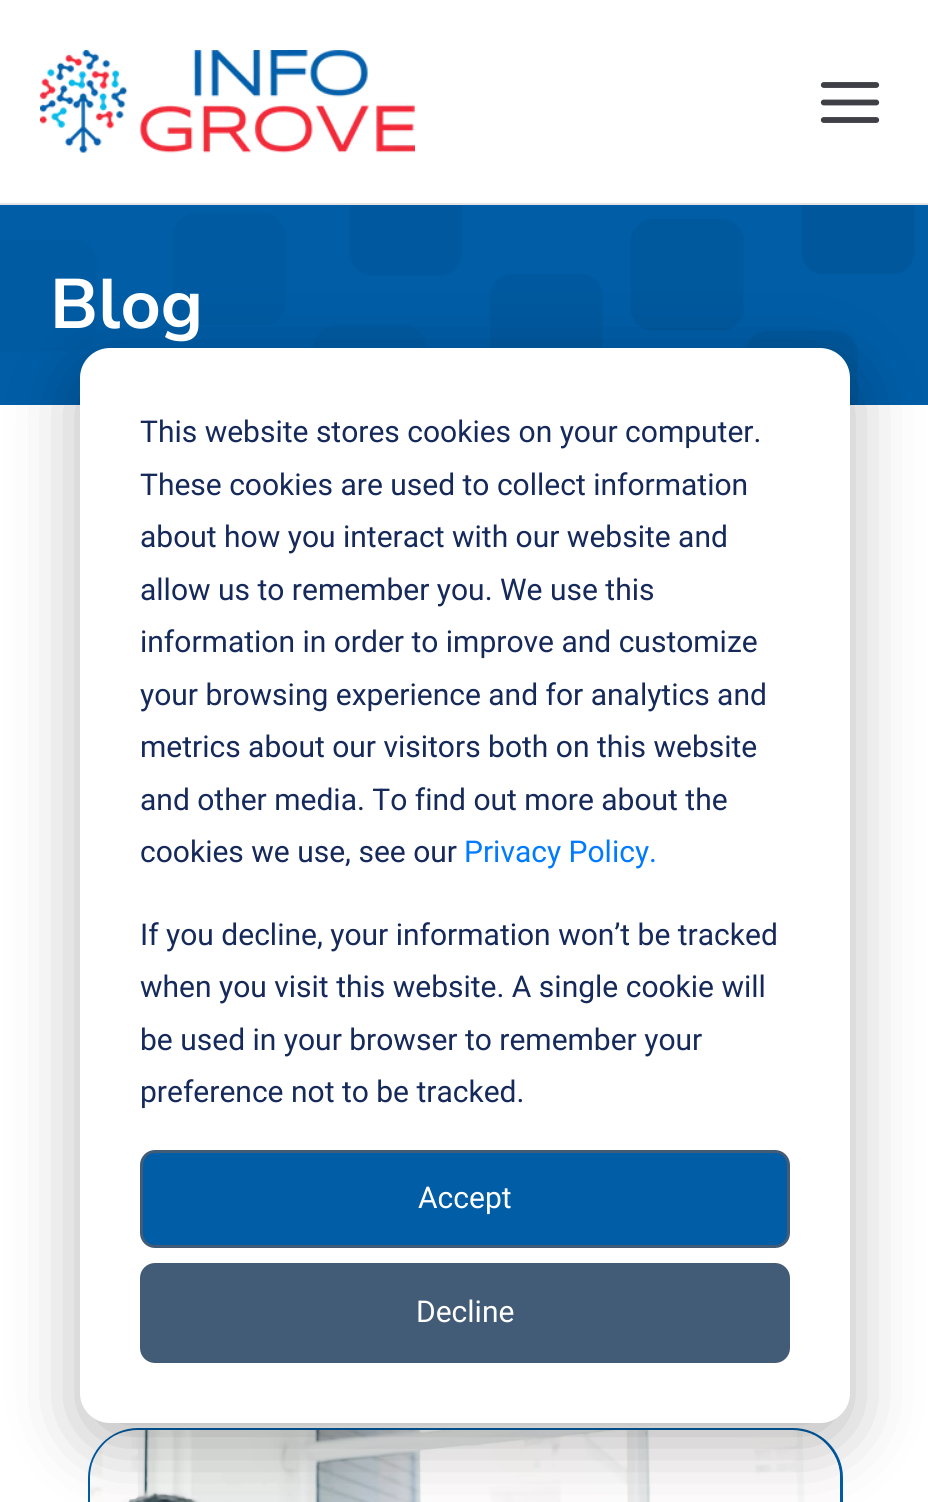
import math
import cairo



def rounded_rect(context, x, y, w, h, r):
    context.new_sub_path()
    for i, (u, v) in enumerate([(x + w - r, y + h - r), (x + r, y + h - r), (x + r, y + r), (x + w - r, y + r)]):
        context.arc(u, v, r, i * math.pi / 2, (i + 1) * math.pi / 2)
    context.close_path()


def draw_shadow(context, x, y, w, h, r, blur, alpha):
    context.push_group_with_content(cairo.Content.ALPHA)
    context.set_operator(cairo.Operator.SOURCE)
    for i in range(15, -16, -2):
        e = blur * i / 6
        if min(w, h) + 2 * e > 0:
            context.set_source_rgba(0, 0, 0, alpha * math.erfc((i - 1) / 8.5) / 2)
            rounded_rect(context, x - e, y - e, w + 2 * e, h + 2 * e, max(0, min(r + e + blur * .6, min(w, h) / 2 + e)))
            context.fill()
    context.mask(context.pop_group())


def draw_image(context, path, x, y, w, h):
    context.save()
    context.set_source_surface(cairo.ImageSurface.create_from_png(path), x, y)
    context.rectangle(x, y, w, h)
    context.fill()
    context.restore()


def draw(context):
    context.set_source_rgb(228 / 255, 228 / 255, 231 / 255)
    context.paint()
    context.set_source_rgb(1, 1, 1)
    context.rectangle(0, 0, 928, 203)
    context.fill()
    draw_image(context, "images/1.png", 40, 50, 375, 103)
    draw_image(context, "images/2.png", 820, 82, 60, 41)
    context.rectangle(0, 405, 928, 1097)
    context.fill()
    context.set_source_rgb(0, 93 / 255, 166 / 255)
    context.rectangle(0, 205, 928, 200)
    context.fill()
    draw_image(context, "images/3.png", 0, 205, 915, 200)
    rounded_rect(context, 89.5, 1429.5, 752, 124, 48.5)
    context.set_line_width(3)
    context.stroke()
    draw_image(context, "images/4.png", 90, 1430, 750, 72)
    context.set_source_rgb(0, 0, 0)
    draw_shadow(context, 80, 368, 770, 1075, 30, 35, 0.28)
    context.set_source_rgb(1, 1, 1)
    rounded_rect(context, 80, 348, 770, 1075, 30)
    context.fill()
    context.set_source_rgb(0, 93 / 255, 166 / 255)
    rounded_rect(context, 141.5, 1151.5, 647, 95, 13.5)
    context.fill_preserve()
    context.set_source_rgb(66 / 255, 91 / 255, 118 / 255)
    context.stroke()
    rounded_rect(context, 141.5, 1264.5, 647, 97, 13.5)
    context.fill_preserve()
    context.stroke()
    context.select_font_face("Nunito Sans", cairo.FontSlant.NORMAL, cairo.FontWeight.BOLD)
    context.set_font_size(70)
    context.set_source_rgb(1, 1, 1)
    context.move_to(50, 328)
    context.show_text("Blog")
    context.select_font_face("Roboto")
    context.set_font_size(30)
    context.set_source_rgb(21 / 255, 41 / 255, 90 / 255)
    context.move_to(140, 442)
    context.show_text("This website stores cookies on your computer.")
    context.move_to(140, 495)
    context.show_text("These cookies are used to collect information")
    context.move_to(140, 547)
    context.show_text("about how you interact with our website and")
    context.move_to(140, 600)
    context.show_text("allow us to remember you. We use this")
    context.move_to(140, 652)
    context.show_text("information in order to improve and customize")
    context.move_to(140, 705)
    context.show_text("your browsing experience and for analytics and")
    context.move_to(140, 757)
    context.show_text("metrics about our visitors both on this website")
    context.move_to(140, 810)
    context.show_text("and other media. To find out more about the")
    context.move_to(140, 862)
    context.show_text("cookies we use, see our")
    context.set_source_rgb(0, 123 / 255, 1)
    context.move_to(464, 862)
    context.show_text("Privacy Policy.")
    context.set_source_rgb(21 / 255, 41 / 255, 90 / 255)
    context.move_to(140, 945)
    context.show_text("If you decline, your information won’t be tracked")
    context.move_to(140, 997)
    context.show_text("when you visit this website. A single cookie will")
    context.move_to(140, 1050)
    context.show_text("be used in your browser to remember your")
    context.move_to(140, 1102)
    context.show_text("preference not to be tracked.")
    context.set_source_rgb(1, 1, 1)
    context.move_to(418, 1208)
    context.show_text("Accept")
    context.move_to(416, 1322)
    context.show_text("Decline")


surface = cairo.ImageSurface(cairo.Format.RGB24, 928, 1502)
context = cairo.Context(surface)
options = cairo.FontOptions()
options.set_hint_metrics(cairo.HintMetrics.OFF)
options.set_hint_style(cairo.HintStyle.NONE)
context.set_font_options(options)
context.set_miter_limit(4)
draw(context)
surface.write_to_png("out.png")
